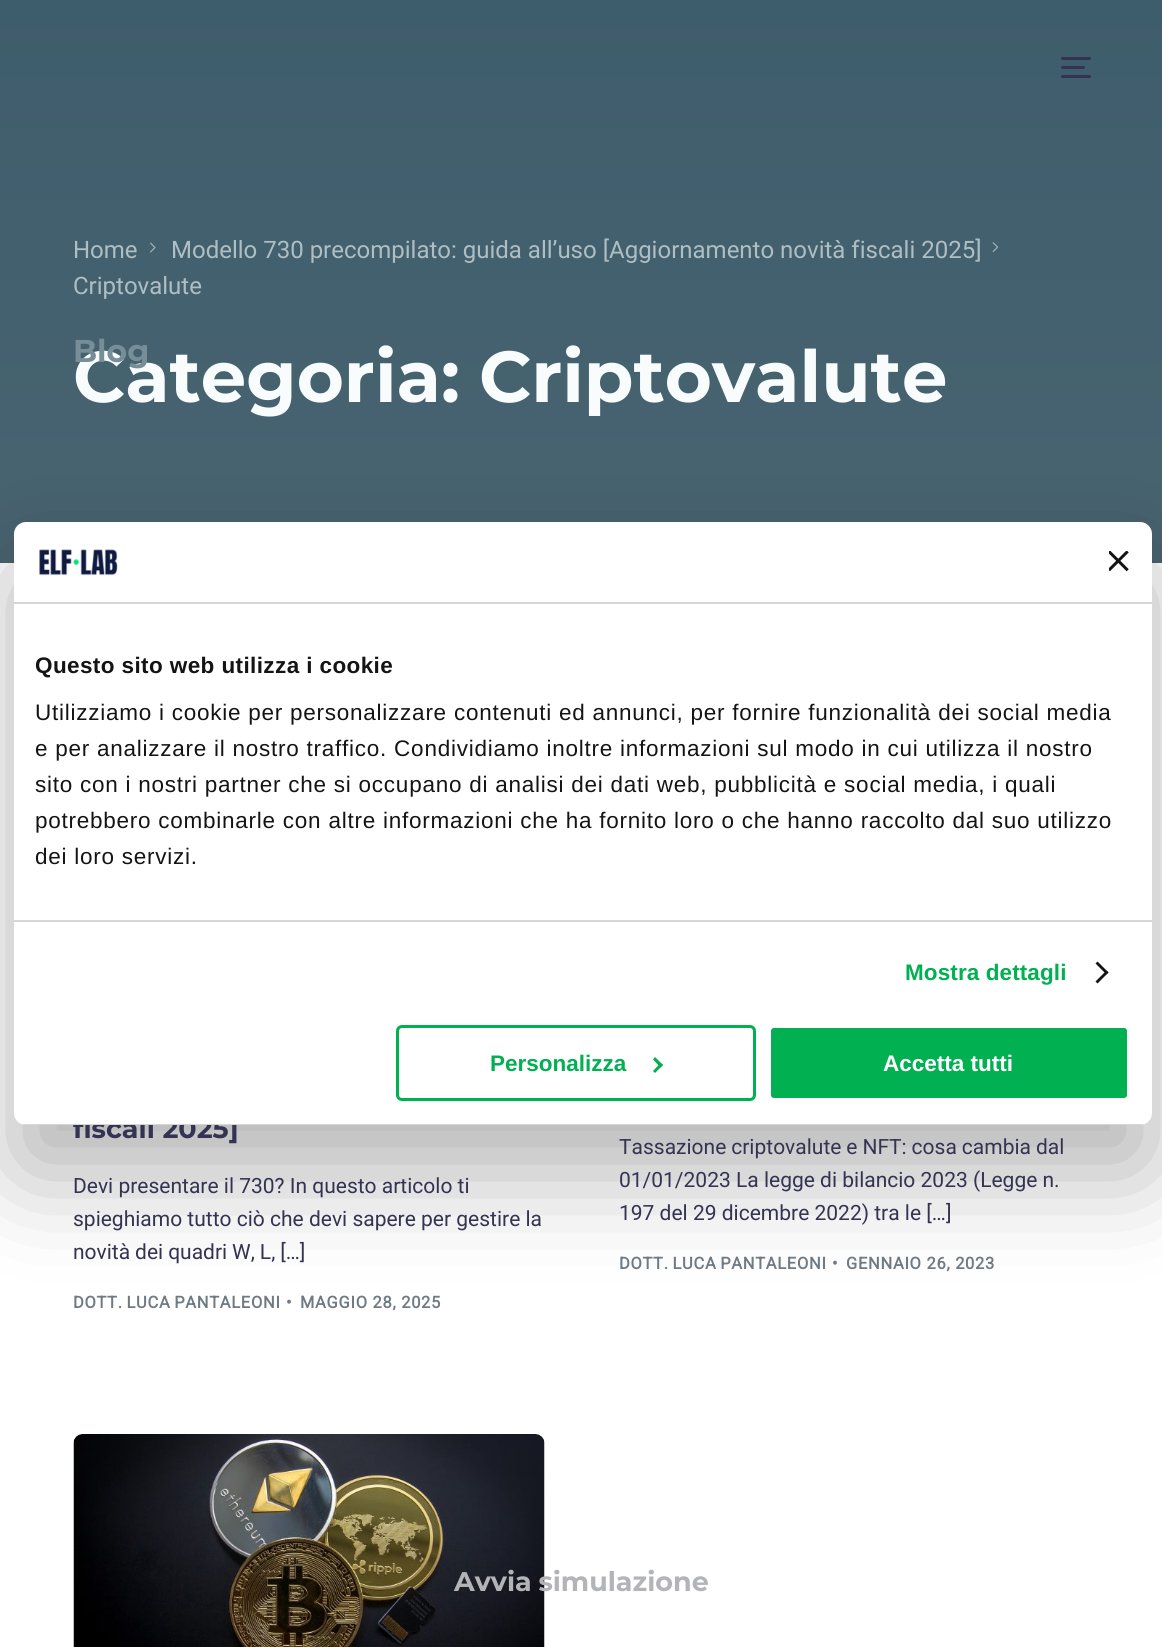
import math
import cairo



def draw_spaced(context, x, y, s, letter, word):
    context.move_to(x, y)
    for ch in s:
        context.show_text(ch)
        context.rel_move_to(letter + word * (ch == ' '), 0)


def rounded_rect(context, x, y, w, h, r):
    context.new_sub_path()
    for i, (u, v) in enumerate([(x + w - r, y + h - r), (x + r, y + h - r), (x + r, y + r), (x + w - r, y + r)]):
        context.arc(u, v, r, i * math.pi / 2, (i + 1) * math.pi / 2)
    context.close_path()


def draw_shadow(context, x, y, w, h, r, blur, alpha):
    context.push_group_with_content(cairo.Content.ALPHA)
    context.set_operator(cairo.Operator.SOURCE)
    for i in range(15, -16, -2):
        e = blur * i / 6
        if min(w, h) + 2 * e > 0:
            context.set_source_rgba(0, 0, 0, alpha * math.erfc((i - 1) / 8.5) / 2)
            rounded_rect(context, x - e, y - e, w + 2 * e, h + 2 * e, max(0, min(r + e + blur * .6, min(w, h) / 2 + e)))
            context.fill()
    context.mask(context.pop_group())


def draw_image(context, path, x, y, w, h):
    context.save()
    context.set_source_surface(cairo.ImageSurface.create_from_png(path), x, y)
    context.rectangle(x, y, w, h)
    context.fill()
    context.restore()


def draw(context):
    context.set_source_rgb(1, 1, 1)
    context.paint()
    gradient = cairo.LinearGradient(581, 0, 581, 563)
    gradient.add_color_stop_rgba(0, 62 / 255, 93 / 255, 108 / 255, 1)
    gradient.add_color_stop_rgba(1, 73 / 255, 100 / 255, 113 / 255, 1)
    context.set_source(gradient)
    context.rectangle(0, 0, 1162, 563)
    context.fill()
    context.set_source_rgb(52 / 255, 51 / 255, 82 / 255)
    rounded_rect(context, 1061, 57, 30, 3, 1.5)
    context.fill()
    rounded_rect(context, 1061, 66, 24, 3, 1.5)
    context.fill()
    rounded_rect(context, 1061, 75, 30, 3, 1.5)
    context.fill()
    draw_image(context, "images/1.png", 150, 242, 6, 11)
    draw_image(context, "images/2.png", 992, 242, 7, 11)
    draw_image(context, "images/3.png", 73, 1434, 472, 213)
    context.set_source_rgb(0, 0, 0)
    draw_shadow(context, 14, 570, 1138, 603, 12, 51, 0.3)
    context.select_font_face("Roboto")
    context.set_font_size(24)
    context.set_source_rgb(175 / 255, 190 / 255, 195 / 255)
    context.move_to(73, 258)
    context.show_text("Home")
    context.move_to(171, 258)
    context.show_text("Modello 730 precompilato: guida all’uso [Aggiornamento novità fiscali 2025]")
    context.move_to(73, 294)
    context.show_text("Criptovalute")
    context.select_font_face("Montserrat Thin")
    context.set_font_size(72)
    context.set_source_rgb(248 / 255, 252 / 255, 252 / 255)
    context.move_to(73, 402)
    context.show_text("Categoria:")
    context.move_to(479, 402)
    context.show_text("Criptovalute")
    context.set_font_size(27)
    context.set_source_rgb(52 / 255, 51 / 255, 82 / 255)
    context.move_to(73, 1138)
    context.show_text("fiscali 2025]")
    context.select_font_face("Roboto")
    context.set_font_size(21)
    context.move_to(73, 1193)
    context.show_text("Devi presentare il 730? In questo articolo ti")
    context.move_to(73, 1226)
    context.show_text("spieghiamo tutto ciò che devi sapere per gestire la")
    draw_spaced(context, 73, 1259, "novità dei quadri W, L, […]", 0, -0.25)
    context.select_font_face("Roboto", cairo.FontSlant.NORMAL, cairo.FontWeight.BOLD)
    context.set_font_size(16.5)
    context.set_source_rgb(110 / 255, 122 / 255, 132 / 255)
    draw_spaced(context, 73, 1308, "DOTT. LUCA PANTALEONI", 0.7, -1)
    draw_spaced(context, 286, 1308, "•", 0.7, 0)
    draw_spaced(context, 300, 1308, "MAGGIO 28, 2025", 0.7, 0)
    context.select_font_face("Roboto")
    context.set_font_size(21)
    context.set_source_rgb(52 / 255, 51 / 255, 82 / 255)
    draw_spaced(context, 619, 1154, "Tassazione criptovalute e NFT: cosa cambia dal", 0, -0.25)
    context.move_to(619, 1187)
    context.show_text("01/01/2023 La legge di bilancio 2023 (Legge n.")
    context.move_to(619, 1220)
    context.show_text("197 del 29 dicembre 2022) tra le […]")
    context.select_font_face("Roboto", cairo.FontSlant.NORMAL, cairo.FontWeight.BOLD)
    context.set_font_size(16.5)
    context.set_source_rgb(110 / 255, 122 / 255, 132 / 255)
    draw_spaced(context, 619, 1269, "DOTT. LUCA PANTALEONI", 0.7, -1)
    draw_spaced(context, 832, 1269, "•", 0.7, 0)
    draw_spaced(context, 846, 1269, "GENNAIO 26, 2023", 0.7, 0)
    context.select_font_face("Montserrat Thin")
    context.set_font_size(31.5)
    context.set_source_rgb(119 / 255, 141 / 255, 151 / 255)
    context.move_to(73, 362)
    context.show_text("Blog")
    context.set_font_size(27)
    context.set_source_rgb(179 / 255, 180 / 255, 183 / 255)
    draw_spaced(context, 454, 1591, "Avvia simulazione", 0, -1)
    context.set_source_rgb(1, 1, 1)
    rounded_rect(context, 14, 522, 1138, 603, 12)
    context.fill()
    context.set_source_rgb(214 / 255, 214 / 255, 214 / 255)
    context.rectangle(14, 602, 1138, 2)
    context.fill()
    draw_image(context, "images/4.png", 39, 549, 79, 27)
    draw_image(context, "images/5.png", 1109, 551, 20, 21)
    context.rectangle(14, 920, 1138, 2)
    context.fill()
    context.select_font_face("Liberation Sans", cairo.FontSlant.NORMAL, cairo.FontWeight.BOLD)
    context.set_font_size(22.5)
    context.set_source_rgb(20 / 255, 20 / 255, 20 / 255)
    draw_spaced(context, 35, 673, "Questo sito web utilizza i cookie", 0.4, 0)
    context.select_font_face("Liberation Sans")
    draw_spaced(context, 35, 720, "Utilizziamo i cookie per personalizzare contenuti ed annunci, per fornire funzionalità dei social media", 0.75, 0)
    draw_spaced(context, 35, 756, "e per analizzare il nostro traffico. Condividiamo inoltre informazioni sul modo in cui utilizza il nostro", 0.75, 0)
    draw_spaced(context, 35, 792, "sito con i nostri partner che si occupano di analisi dei dati web, pubblicità e social media, i quali", 0.75, 0)
    draw_spaced(context, 35, 828, "potrebbero combinarle con altre informazioni che ha fornito loro o che hanno raccolto dal suo utilizzo", 0.75, 0)
    draw_spaced(context, 35, 864, "dei loro servizi.", 0.75, 0)
    context.select_font_face("Liberation Sans", cairo.FontSlant.NORMAL, cairo.FontWeight.BOLD)
    context.set_source_rgb(1 / 255, 176 / 255, 80 / 255)
    draw_spaced(context, 905, 980, "Mostra dettagli", 0.1, 0)
    context.set_source_rgb(20 / 255, 20 / 255, 20 / 255)
    context.new_path()
    context.move_to(1097.5, 961.5)
    context.line_to(1108.5, 972.5)
    context.line_to(1106.5, 974.5)
    context.line_to(1095.5, 963.5)
    context.close_path()
    context.fill()
    context.new_path()
    context.move_to(1106.5, 970.5)
    context.line_to(1108.5, 972.5)
    context.line_to(1097.5, 983.5)
    context.line_to(1095.5, 981.5)
    context.close_path()
    context.fill()
    context.save()
    rounded_rect(context, 14, 522, 1138, 603, 12)
    context.clip()
    context.set_source_rgb(214 / 255, 214 / 255, 214 / 255)
    context.rectangle(14, 1124, 1138, 1)
    context.fill()
    context.restore()
    rounded_rect(context, 397.5, 1026.5, 357, 73, 4.5)
    context.set_source_rgb(1 / 255, 176 / 255, 80 / 255)
    context.set_line_width(3)
    context.stroke()
    context.move_to(490, 1071)
    context.show_text("Personalizza")
    context.new_path()
    context.move_to(655, 1057)
    context.line_to(663, 1065)
    context.line_to(660.5, 1067.5)
    context.line_to(653, 1059.5)
    context.close_path()
    context.fill()
    context.new_path()
    context.move_to(660.5, 1063)
    context.line_to(663, 1065)
    context.line_to(655, 1073)
    context.line_to(653, 1071)
    context.close_path()
    context.fill()
    rounded_rect(context, 769.5, 1026.5, 359, 73, 4.5)
    context.fill_preserve()
    context.set_source_rgb(1, 1, 1)
    context.stroke()
    context.move_to(883, 1071)
    context.show_text("Accetta tutti")


surface = cairo.ImageSurface(cairo.Format.RGB24, 1162, 1647)
context = cairo.Context(surface)
options = cairo.FontOptions()
options.set_hint_metrics(cairo.HintMetrics.OFF)
options.set_hint_style(cairo.HintStyle.NONE)
context.set_font_options(options)
context.set_miter_limit(4)
draw(context)
surface.write_to_png("out.png")
